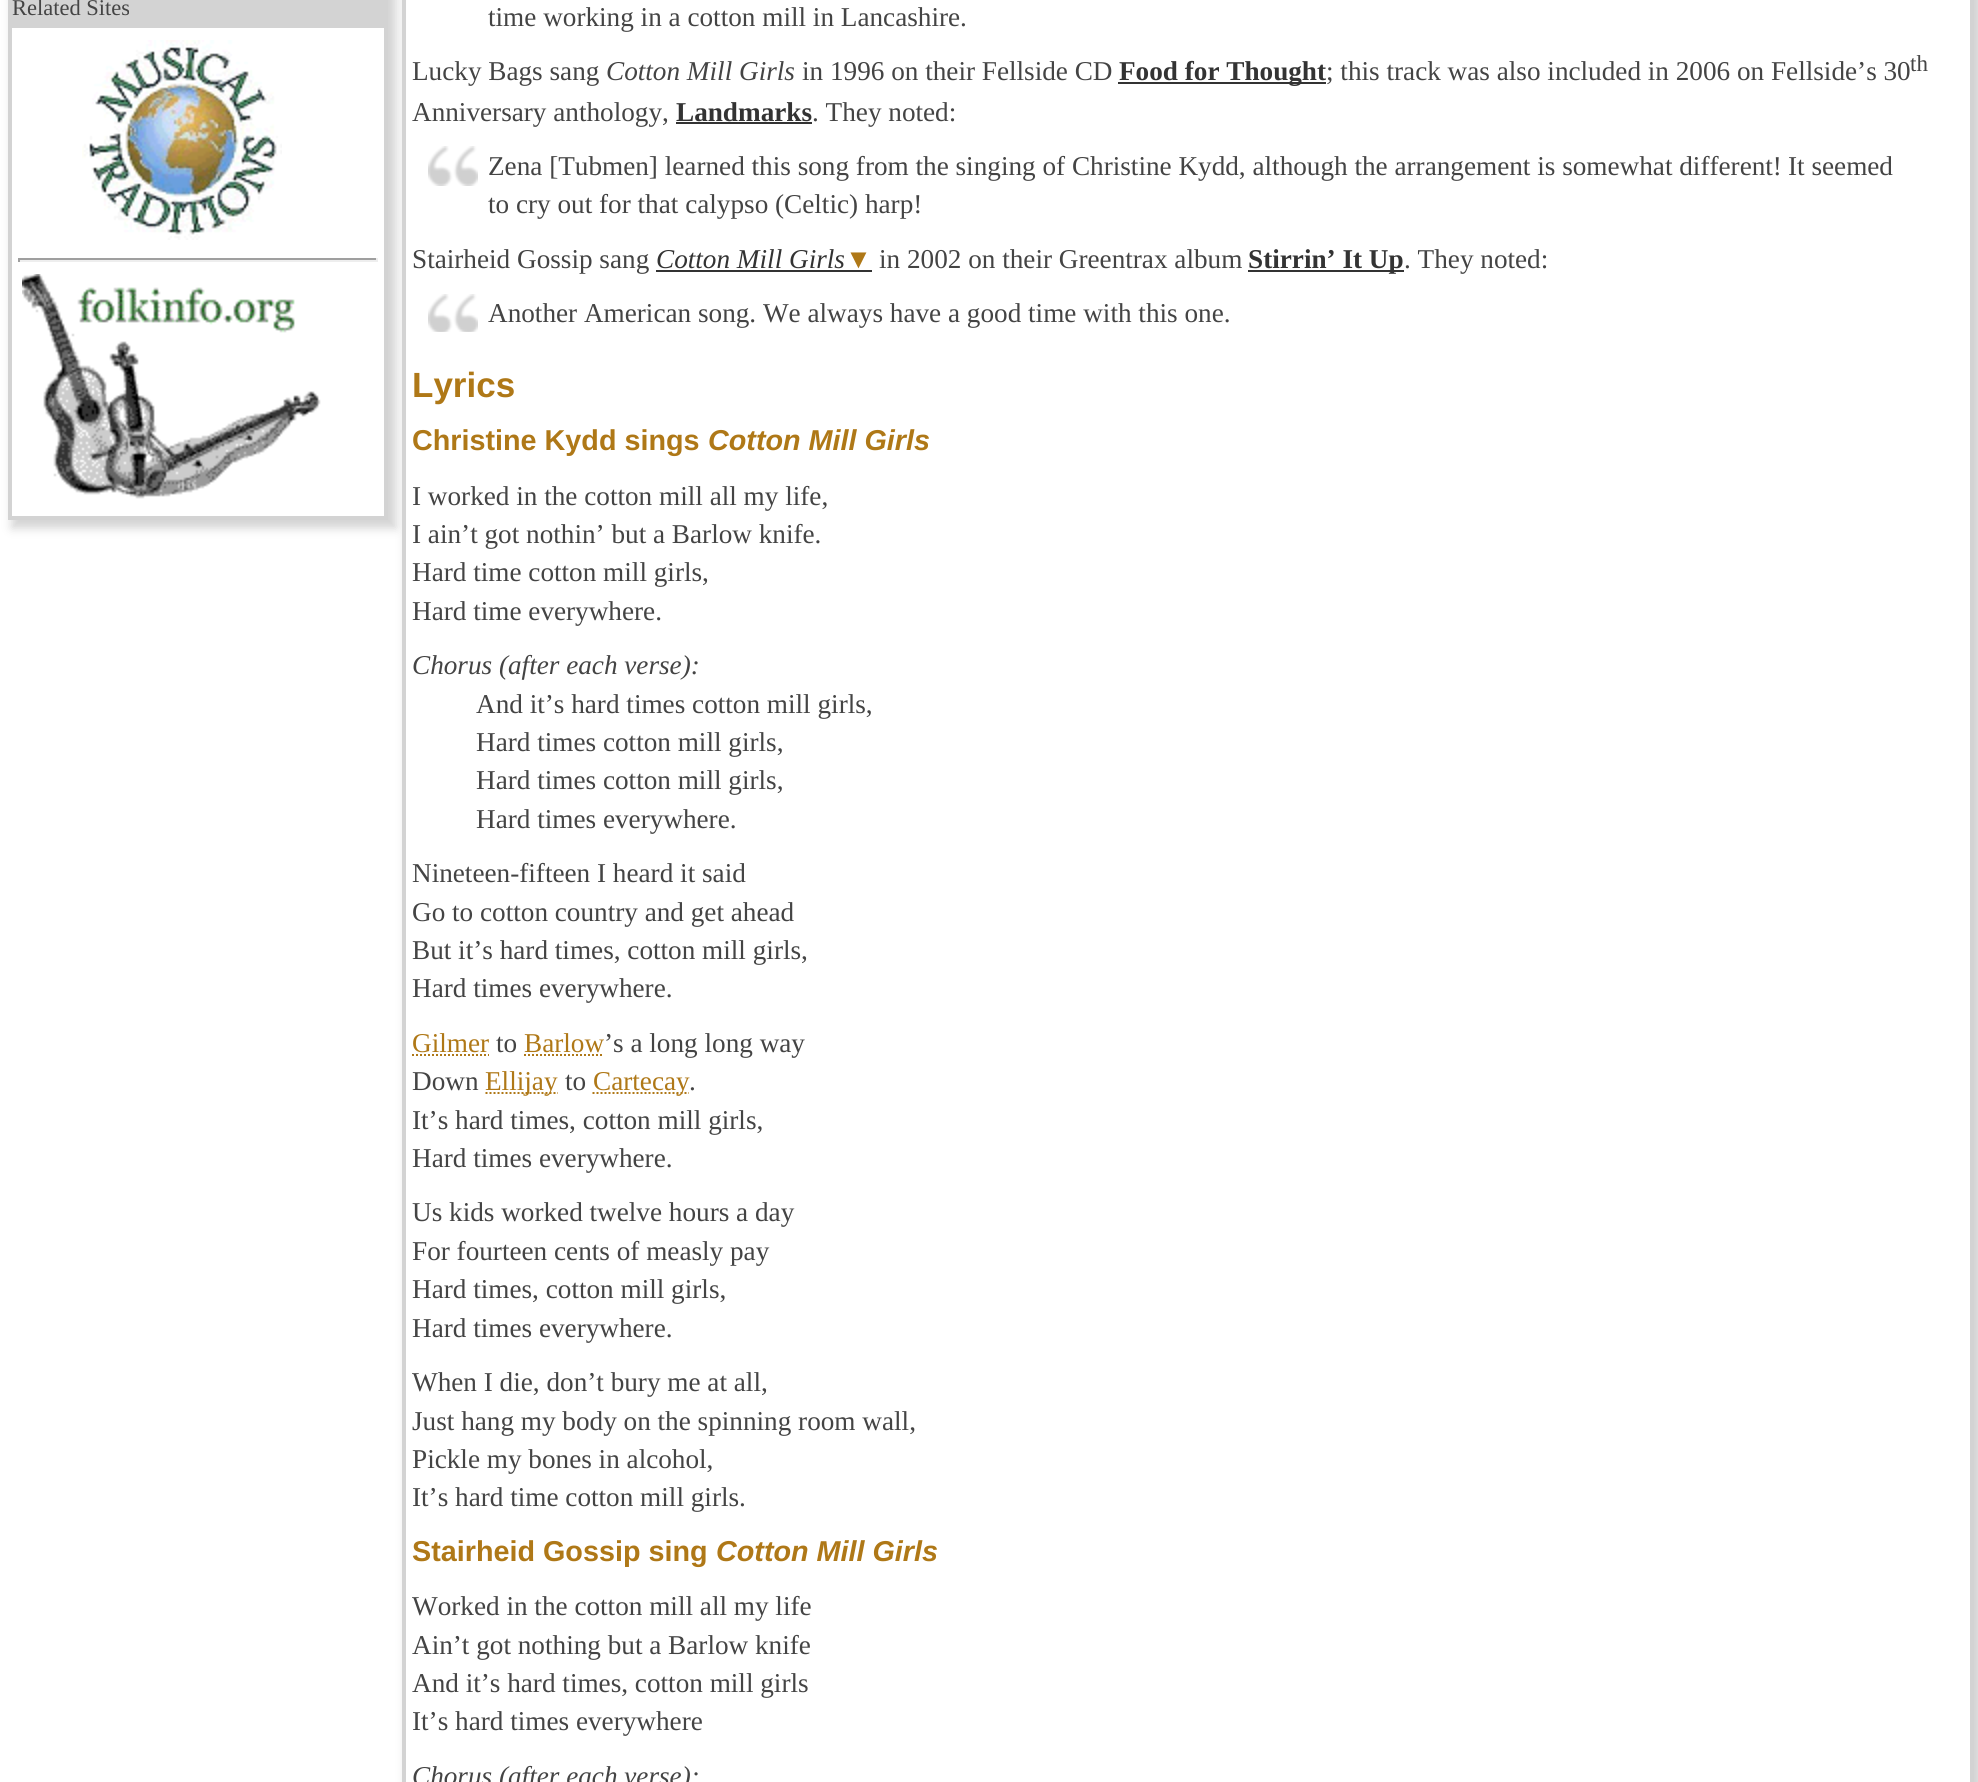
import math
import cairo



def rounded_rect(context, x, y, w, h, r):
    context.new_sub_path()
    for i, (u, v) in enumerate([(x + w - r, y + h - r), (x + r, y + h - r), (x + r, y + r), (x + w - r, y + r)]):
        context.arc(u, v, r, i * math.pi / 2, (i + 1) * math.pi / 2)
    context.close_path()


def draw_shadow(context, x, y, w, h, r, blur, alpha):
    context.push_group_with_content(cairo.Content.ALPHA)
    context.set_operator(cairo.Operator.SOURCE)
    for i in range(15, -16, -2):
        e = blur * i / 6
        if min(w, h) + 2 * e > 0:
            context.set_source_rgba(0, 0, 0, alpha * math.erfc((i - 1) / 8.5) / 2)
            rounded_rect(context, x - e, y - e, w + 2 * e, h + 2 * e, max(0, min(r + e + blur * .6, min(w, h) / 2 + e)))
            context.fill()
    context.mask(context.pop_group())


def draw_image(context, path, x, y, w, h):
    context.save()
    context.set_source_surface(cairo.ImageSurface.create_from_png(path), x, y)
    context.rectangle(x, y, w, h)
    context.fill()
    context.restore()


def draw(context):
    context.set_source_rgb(1, 1, 1)
    context.paint()
    context.save()
    context.set_fill_rule(cairo.FillRule.EVEN_ODD)
    context.new_path()
    context.move_to(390, 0)
    context.line_to(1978, 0)
    context.line_to(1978, 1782)
    context.line_to(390, 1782)
    context.close_path()
    context.move_to(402, -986)
    context.line_to(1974, -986)
    context.line_to(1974, 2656)
    context.line_to(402, 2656)
    context.close_path()
    context.clip()
    context.set_source_rgb(211 / 255, 211 / 255, 211 / 255)
    draw_shadow(context, 406, -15, 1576, 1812, 0, 5, 1)
    context.restore()
    context.rectangle(404, -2, 1568, 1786)
    context.set_source_rgb(211 / 255, 211 / 255, 211 / 255)
    context.set_line_width(4)
    context.stroke()
    context.save()
    context.set_fill_rule(cairo.FillRule.EVEN_ODD)
    context.new_path()
    context.move_to(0, 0)
    context.line_to(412, 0)
    context.line_to(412, 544)
    context.line_to(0, 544)
    context.close_path()
    context.move_to(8, -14)
    context.line_to(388, -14)
    context.line_to(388, 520)
    context.line_to(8, 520)
    context.close_path()
    context.clip()
    context.set_source_rgb(211 / 255, 211 / 255, 211 / 255)
    draw_shadow(context, 12, -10, 384, 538, 0, 5, 1)
    context.restore()
    context.rectangle(10, -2, 376, 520)
    context.stroke()
    context.rectangle(12, 0, 372, 28)
    context.fill()
    draw_image(context, "images/1.png", 82, 40, 200, 200)
    context.set_source_rgb(159 / 255, 159 / 255, 159 / 255)
    context.rectangle(18, 258, 360, 2)
    context.fill()
    context.set_source_rgb(238 / 255, 238 / 255, 238 / 255)
    context.rectangle(376, 258, 2, 4)
    context.fill()
    context.rectangle(18, 260, 360, 2)
    context.fill()
    context.set_source_rgb(159 / 255, 159 / 255, 159 / 255)
    context.rectangle(18, 258, 2, 4)
    context.fill()
    draw_image(context, "images/2.png", 22, 274, 299, 225)
    context.set_source_rgb(51 / 255, 51 / 255, 51 / 255)
    context.rectangle(1118, 82, 208, 2)
    context.fill()
    context.rectangle(676, 122, 136, 2)
    context.fill()
    draw_image(context, "images/3.png", 428, 146, 50, 40)
    context.rectangle(656, 270, 216, 2)
    context.fill()
    context.rectangle(1248, 270, 156, 2)
    context.fill()
    draw_image(context, "images/4.png", 428, 294, 50, 38)
    context.new_path()
    context.move_to(412, 1055)
    context.line_to(489, 1055)
    context.set_source_rgb(175 / 255, 120 / 255, 23 / 255)
    context.set_line_width(2)
    context.set_dash([2, 2])
    context.stroke()
    context.new_path()
    context.move_to(524, 1055)
    context.line_to(604, 1055)
    context.stroke()
    context.new_path()
    context.move_to(485.5, 1093)
    context.line_to(558, 1093)
    context.stroke()
    context.new_path()
    context.move_to(592.5, 1093)
    context.line_to(689, 1093)
    context.stroke()
    context.select_font_face("Liberation Serif")
    context.set_font_size(22.5)
    context.set_source_rgb(68 / 255, 68 / 255, 68 / 255)
    context.move_to(12, 15)
    context.show_text("Related Sites")
    context.set_font_size(27.2)
    context.move_to(488, 26)
    context.show_text("time working in a cotton mill in Lancashire.")
    context.move_to(412, 80)
    context.show_text("Lucky Bags sang")
    context.select_font_face("Liberation Serif", cairo.FontSlant.ITALIC)
    context.move_to(606, 80)
    context.show_text("Cotton Mill Girls")
    context.select_font_face("Liberation Serif")
    context.move_to(802, 80)
    context.show_text("in 1996 on their Fellside CD")
    context.select_font_face("Liberation Serif", cairo.FontSlant.NORMAL, cairo.FontWeight.BOLD)
    context.set_source_rgb(51 / 255, 51 / 255, 51 / 255)
    context.move_to(1119, 80)
    context.show_text("Food for Thought")
    context.select_font_face("Liberation Serif")
    context.set_source_rgb(68 / 255, 68 / 255, 68 / 255)
    context.move_to(1326, 80)
    context.show_text("; this track was also included in 2006 on Fellside’s 30")
    context.set_font_size(23)
    context.move_to(1910, 71)
    context.show_text("th")
    context.set_font_size(27.2)
    context.move_to(412, 121)
    context.show_text("Anniversary anthology,")
    context.select_font_face("Liberation Serif", cairo.FontSlant.NORMAL, cairo.FontWeight.BOLD)
    context.set_source_rgb(51 / 255, 51 / 255, 51 / 255)
    context.move_to(676, 121)
    context.show_text("Landmarks")
    context.select_font_face("Liberation Serif")
    context.set_source_rgb(68 / 255, 68 / 255, 68 / 255)
    context.move_to(812, 121)
    context.show_text(". They noted:")
    context.move_to(488, 175)
    context.show_text("Zena [Tubmen] learned this song from the singing of Christine Kydd, although the arrangement is somewhat different!")
    context.move_to(1788, 175)
    context.show_text("It seemed")
    context.move_to(488, 213)
    context.show_text("to cry out for that calypso (Celtic) harp!")
    context.move_to(412, 268)
    context.show_text("Stairheid Gossip sang")
    context.select_font_face("Liberation Serif", cairo.FontSlant.ITALIC)
    context.set_source_rgb(51 / 255, 51 / 255, 51 / 255)
    context.move_to(656, 268)
    context.show_text("Cotton Mill Girls")
    context.set_source_rgb(175 / 255, 120 / 255, 23 / 255)
    context.move_to(845, 268)
    context.show_text("▼")
    context.select_font_face("Liberation Serif")
    context.set_source_rgb(68 / 255, 68 / 255, 68 / 255)
    context.move_to(879, 268)
    context.show_text("in 2002 on their Greentrax album")
    context.select_font_face("Liberation Serif", cairo.FontSlant.NORMAL, cairo.FontWeight.BOLD)
    context.set_source_rgb(51 / 255, 51 / 255, 51 / 255)
    context.move_to(1248, 268)
    context.show_text("Stirrin’ It Up")
    context.select_font_face("Liberation Serif")
    context.set_source_rgb(68 / 255, 68 / 255, 68 / 255)
    context.move_to(1404, 268)
    context.show_text(". They noted:")
    context.move_to(488, 322)
    context.show_text("Another American song. We always have a good time with this one.")
    context.select_font_face("Liberation Sans", cairo.FontSlant.NORMAL, cairo.FontWeight.BOLD)
    context.set_font_size(35)
    context.set_source_rgb(175 / 255, 120 / 255, 23 / 255)
    context.move_to(412, 397)
    context.show_text("Lyrics")
    context.set_font_size(28.75)
    context.move_to(412, 450)
    context.show_text("Christine Kydd sings")
    context.select_font_face("Liberation Sans", cairo.FontSlant.ITALIC, cairo.FontWeight.BOLD)
    context.move_to(708, 450)
    context.show_text("Cotton Mill Girls")
    context.select_font_face("Liberation Serif")
    context.set_font_size(27.2)
    context.set_source_rgb(68 / 255, 68 / 255, 68 / 255)
    context.move_to(412, 505)
    context.show_text("I worked in the cotton mill all my life,")
    context.move_to(412, 543)
    context.show_text("I ain’t got nothin’ but a Barlow knife.")
    context.move_to(412, 581)
    context.show_text("Hard time cotton mill girls,")
    context.move_to(412, 620)
    context.show_text("Hard time everywhere.")
    context.select_font_face("Liberation Serif", cairo.FontSlant.ITALIC)
    context.move_to(412, 674)
    context.show_text("Chorus (after each verse):")
    context.select_font_face("Liberation Serif")
    context.move_to(476, 713)
    context.show_text("And it’s hard times cotton mill girls,")
    context.move_to(476, 751)
    context.show_text("Hard times cotton mill girls,")
    context.move_to(476, 789)
    context.show_text("Hard times cotton mill girls,")
    context.move_to(476, 828)
    context.show_text("Hard times everywhere.")
    context.move_to(412, 882)
    context.show_text("Nineteen-fifteen I heard it said")
    context.move_to(412, 921)
    context.show_text("Go to cotton country and get ahead")
    context.move_to(412, 959)
    context.show_text("But it’s hard times, cotton mill girls,")
    context.move_to(412, 997)
    context.show_text("Hard times everywhere.")
    context.set_source_rgb(175 / 255, 120 / 255, 23 / 255)
    context.move_to(412, 1052)
    context.show_text("Gilmer")
    context.set_source_rgb(68 / 255, 68 / 255, 68 / 255)
    context.move_to(496, 1052)
    context.show_text("to")
    context.set_source_rgb(175 / 255, 120 / 255, 23 / 255)
    context.move_to(524, 1052)
    context.show_text("Barlow")
    context.set_source_rgb(68 / 255, 68 / 255, 68 / 255)
    context.move_to(604, 1052)
    context.show_text("’s a long long way")
    context.move_to(412, 1090)
    context.show_text("Down")
    context.set_source_rgb(175 / 255, 120 / 255, 23 / 255)
    context.move_to(485, 1090)
    context.show_text("Ellijay")
    context.set_source_rgb(68 / 255, 68 / 255, 68 / 255)
    context.move_to(565, 1090)
    context.show_text("to")
    context.set_source_rgb(175 / 255, 120 / 255, 23 / 255)
    context.move_to(593, 1090)
    context.show_text("Cartecay")
    context.set_source_rgb(68 / 255, 68 / 255, 68 / 255)
    context.move_to(689, 1090)
    context.show_text(".")
    context.move_to(412, 1129)
    context.show_text("It’s hard times, cotton mill girls,")
    context.move_to(412, 1167)
    context.show_text("Hard times everywhere.")
    context.move_to(412, 1221)
    context.show_text("Us kids worked twelve hours a day")
    context.move_to(412, 1260)
    context.show_text("For fourteen cents of measly pay")
    context.move_to(412, 1298)
    context.show_text("Hard times, cotton mill girls,")
    context.move_to(412, 1337)
    context.show_text("Hard times everywhere.")
    context.move_to(412, 1391)
    context.show_text("When I die, don’t bury me at all,")
    context.move_to(412, 1430)
    context.show_text("Just hang my body on the spinning room wall,")
    context.move_to(412, 1468)
    context.show_text("Pickle my bones in alcohol,")
    context.move_to(412, 1506)
    context.show_text("It’s hard time cotton mill girls.")
    context.select_font_face("Liberation Sans", cairo.FontSlant.NORMAL, cairo.FontWeight.BOLD)
    context.set_font_size(28.75)
    context.set_source_rgb(175 / 255, 120 / 255, 23 / 255)
    context.move_to(412, 1561)
    context.show_text("Stairheid Gossip sing")
    context.select_font_face("Liberation Sans", cairo.FontSlant.ITALIC, cairo.FontWeight.BOLD)
    context.move_to(716, 1561)
    context.show_text("Cotton Mill Girls")
    context.select_font_face("Liberation Serif")
    context.set_font_size(27.2)
    context.set_source_rgb(68 / 255, 68 / 255, 68 / 255)
    context.move_to(412, 1615)
    context.show_text("Worked in the cotton mill all my life")
    context.move_to(412, 1654)
    context.show_text("Ain’t got nothing but a Barlow knife")
    context.move_to(412, 1692)
    context.show_text("And it’s hard times, cotton mill girls")
    context.move_to(412, 1730)
    context.show_text("It’s hard times everywhere")
    context.select_font_face("Liberation Serif", cairo.FontSlant.ITALIC)
    context.move_to(412, 1785)
    context.show_text("Chorus (after each verse):")


surface = cairo.ImageSurface(cairo.Format.RGB24, 1978, 1782)
context = cairo.Context(surface)
options = cairo.FontOptions()
options.set_hint_metrics(cairo.HintMetrics.OFF)
options.set_hint_style(cairo.HintStyle.NONE)
context.set_font_options(options)
context.set_miter_limit(4)
draw(context)
surface.write_to_png("out.png")
